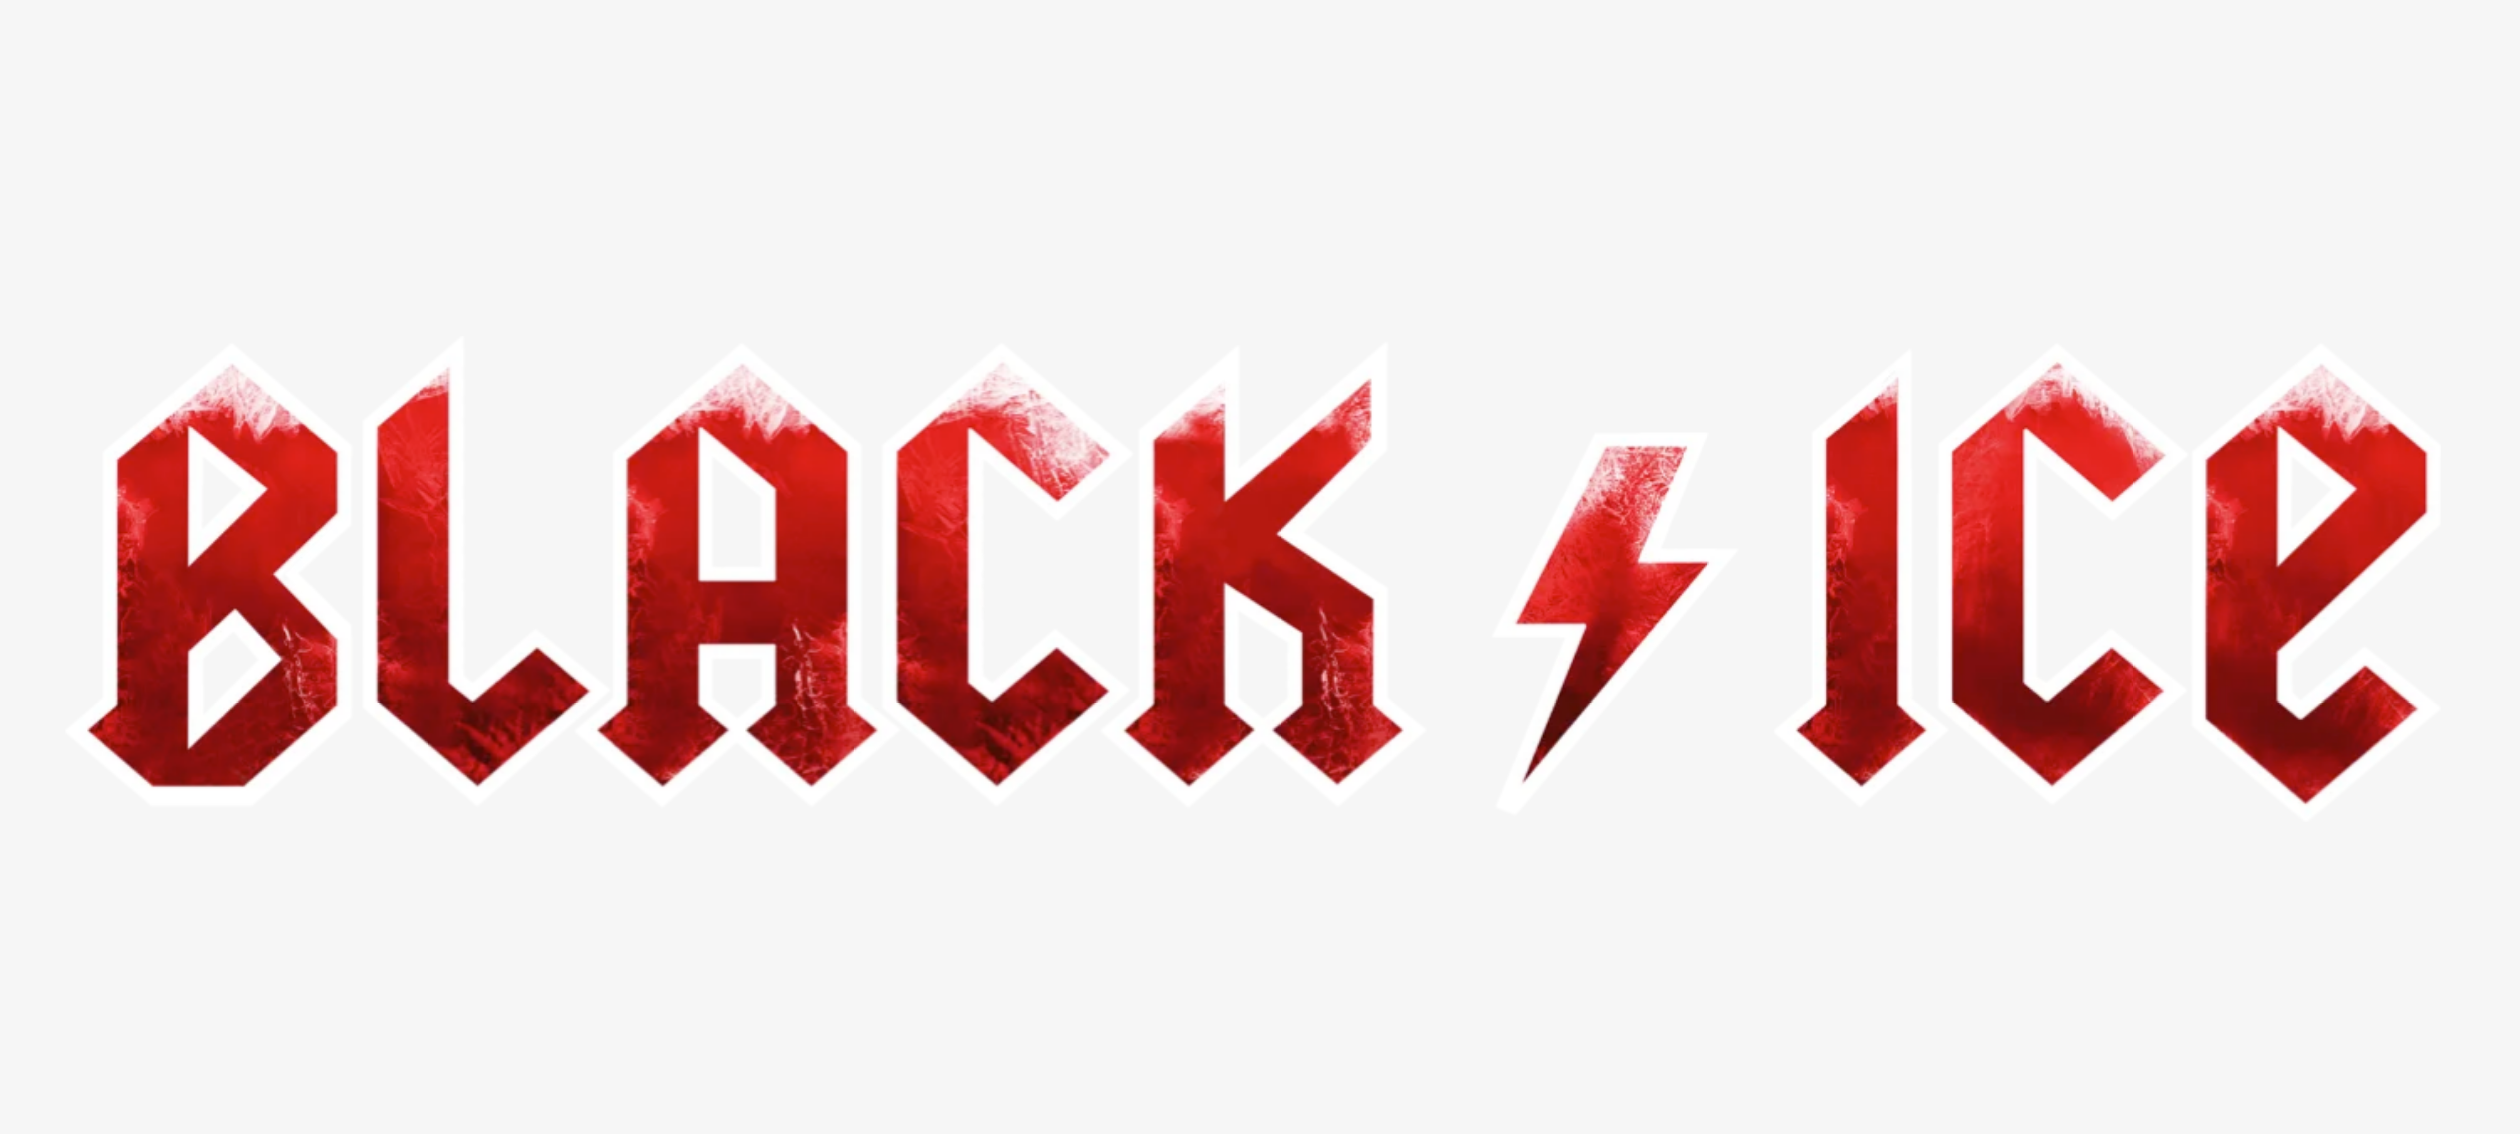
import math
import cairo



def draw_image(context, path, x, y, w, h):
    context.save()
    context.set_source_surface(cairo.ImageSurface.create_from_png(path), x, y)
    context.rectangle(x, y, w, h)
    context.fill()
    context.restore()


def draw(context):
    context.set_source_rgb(246 / 255, 246 / 255, 246 / 255)
    context.paint()
    draw_image(context, "images/1.png", 65, 336, 2376, 486)


surface = cairo.ImageSurface(cairo.Format.RGB24, 2520, 1134)
context = cairo.Context(surface)
options = cairo.FontOptions()
options.set_hint_metrics(cairo.HintMetrics.OFF)
options.set_hint_style(cairo.HintStyle.NONE)
context.set_font_options(options)
context.set_miter_limit(4)
draw(context)
surface.write_to_png("out.png")
